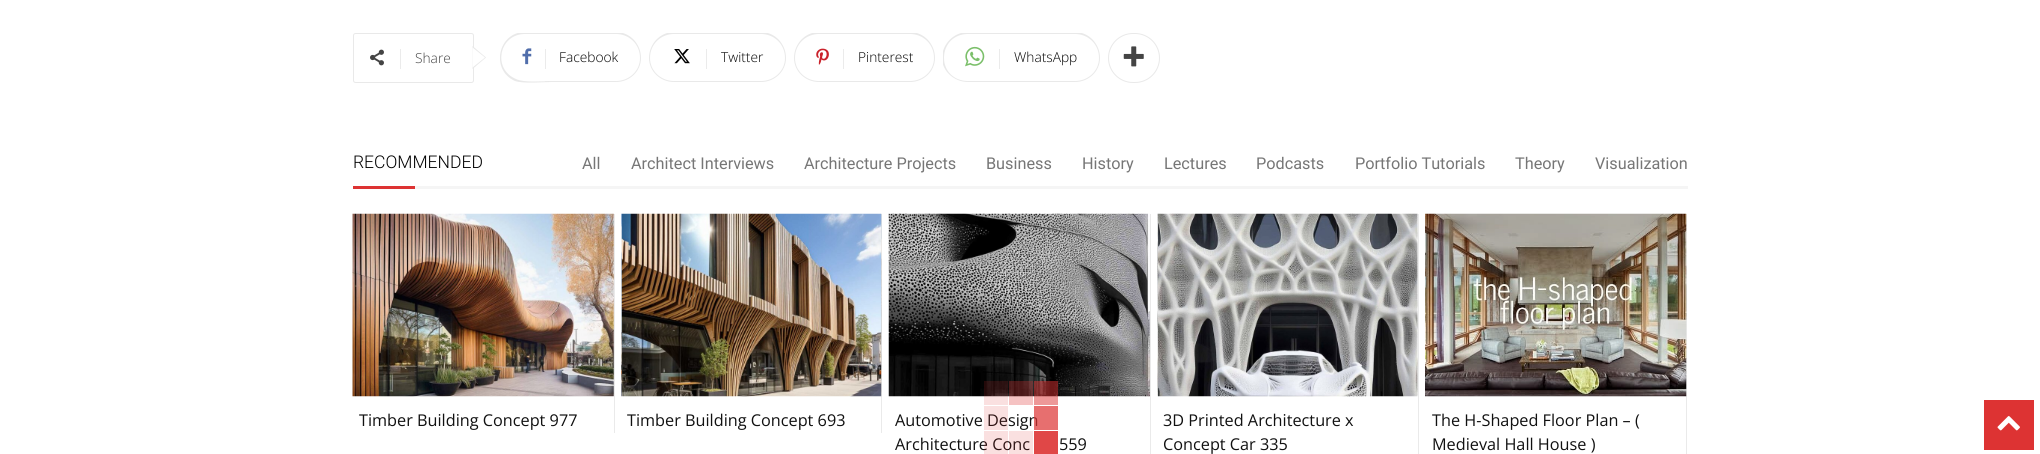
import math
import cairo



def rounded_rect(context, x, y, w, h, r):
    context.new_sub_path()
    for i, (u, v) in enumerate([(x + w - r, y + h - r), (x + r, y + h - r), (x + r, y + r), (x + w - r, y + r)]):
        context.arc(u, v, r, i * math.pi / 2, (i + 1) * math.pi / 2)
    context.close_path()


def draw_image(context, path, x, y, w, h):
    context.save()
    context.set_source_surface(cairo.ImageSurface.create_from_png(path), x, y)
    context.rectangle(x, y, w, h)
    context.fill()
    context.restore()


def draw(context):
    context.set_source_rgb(1, 1, 1)
    context.paint()
    rounded_rect(context, 353.5, 33.5, 120, 49, 2)
    context.set_source_rgb(233 / 255, 233 / 255, 233 / 255)
    context.set_line_width(1)
    context.stroke()
    context.new_path()
    context.move_to(472.5, 69)
    context.line_to(472.5, 46)
    context.line_to(486, 57.5)
    context.close_path()
    context.fill()
    draw_image(context, "images/1.png", 370, 49, 14, 17)
    context.set_source_rgb(235 / 255, 235 / 255, 235 / 255)
    context.rectangle(400, 49, 1, 20)
    context.fill()
    context.set_source_rgb(1, 1, 1)
    context.new_path()
    context.move_to(472.5, 67.5)
    context.line_to(472.5, 47.5)
    context.line_to(485, 57.5)
    context.close_path()
    context.fill()
    context.save()
    context.rectangle(500, 33, 141, 50)
    context.clip()
    context.set_source_rgb(233 / 255, 233 / 255, 233 / 255)
    context.set_fill_rule(cairo.FillRule.EVEN_ODD)
    context.new_path()
    context.move_to(545, 32)
    context.line_to(616, 32)
    context.curve_to(630, 32, 641, 44, 641, 58)
    context.curve_to(641, 71, 630, 82, 616, 82)
    context.line_to(545, 82)
    context.close_path()
    context.move_to(545, 34)
    context.line_to(616, 34)
    context.curve_to(629, 34, 640, 44, 640, 58)
    context.curve_to(640, 71, 629, 81, 616, 81)
    context.line_to(545, 81)
    context.close_path()
    context.fill()
    context.new_path()
    context.move_to(525, 32)
    context.line_to(552, 32)
    context.line_to(552, 82)
    context.curve_to(543, 82, 524, 84, 515, 81)
    context.curve_to(490, 70, 498, 32, 525, 32)
    context.close_path()
    context.move_to(525, 34)
    context.line_to(552, 34)
    context.line_to(552, 81)
    context.curve_to(543, 81, 524, 83, 516, 79)
    context.curve_to(492, 69, 499, 34, 525, 34)
    context.close_path()
    context.fill()
    context.restore()
    draw_image(context, "images/2.png", 522, 48, 10, 17)
    context.set_source_rgb(235 / 255, 235 / 255, 235 / 255)
    context.rectangle(545, 49, 1, 20)
    context.fill()
    context.save()
    context.rectangle(649, 33, 137, 50)
    context.clip()
    context.set_source_rgb(233 / 255, 233 / 255, 233 / 255)
    context.set_fill_rule(cairo.FillRule.EVEN_ODD)
    context.new_path()
    context.move_to(706, 32)
    context.line_to(761, 32)
    context.curve_to(775, 32, 786, 44, 786, 58)
    context.curve_to(786, 71, 775, 82, 761, 82)
    context.line_to(706, 82)
    context.close_path()
    context.move_to(706, 34)
    context.line_to(761, 34)
    context.curve_to(774, 34, 785, 44, 785, 58)
    context.curve_to(785, 71, 774, 81, 761, 81)
    context.line_to(706, 81)
    context.close_path()
    context.fill()
    context.new_path()
    context.move_to(674, 32)
    context.line_to(714, 32)
    context.line_to(714, 82)
    context.line_to(674, 82)
    context.curve_to(660, 82, 649, 71, 649, 58)
    context.curve_to(649, 44, 660, 32, 674, 32)
    context.close_path()
    context.move_to(674, 34)
    context.line_to(714, 34)
    context.line_to(714, 81)
    context.line_to(674, 81)
    context.curve_to(661, 81, 650, 71, 650, 58)
    context.curve_to(650, 44, 661, 34, 674, 34)
    context.close_path()
    context.fill()
    context.restore()
    draw_image(context, "images/3.png", 674, 49, 16, 15)
    context.rectangle(706, 49, 1, 20)
    context.fill()
    context.save()
    context.rectangle(794, 33, 141, 50)
    context.clip()
    context.set_source_rgb(233 / 255, 233 / 255, 233 / 255)
    context.set_fill_rule(cairo.FillRule.EVEN_ODD)
    context.new_path()
    context.move_to(842, 32)
    context.line_to(910, 32)
    context.curve_to(924, 32, 935, 44, 935, 58)
    context.curve_to(935, 71, 924, 82, 910, 82)
    context.line_to(842, 82)
    context.close_path()
    context.move_to(842, 34)
    context.line_to(910, 34)
    context.curve_to(923, 34, 934, 44, 934, 58)
    context.curve_to(934, 71, 923, 81, 910, 81)
    context.line_to(842, 81)
    context.close_path()
    context.fill()
    context.new_path()
    context.move_to(819, 32)
    context.line_to(850, 32)
    context.line_to(850, 82)
    context.line_to(819, 82)
    context.curve_to(805, 82, 794, 71, 794, 58)
    context.curve_to(794, 44, 805, 32, 819, 32)
    context.close_path()
    context.move_to(819, 34)
    context.line_to(850, 34)
    context.line_to(850, 81)
    context.line_to(819, 81)
    context.curve_to(806, 81, 795, 71, 795, 58)
    context.curve_to(795, 44, 806, 34, 819, 34)
    context.close_path()
    context.fill()
    context.restore()
    draw_image(context, "images/4.png", 816, 48, 13, 17)
    context.rectangle(843, 49, 1, 20)
    context.fill()
    context.save()
    context.rectangle(943, 33, 157, 50)
    context.clip()
    context.set_source_rgb(233 / 255, 233 / 255, 233 / 255)
    context.set_fill_rule(cairo.FillRule.EVEN_ODD)
    context.new_path()
    context.move_to(999, 32)
    context.line_to(1075, 32)
    context.curve_to(1089, 32, 1100, 44, 1100, 58)
    context.curve_to(1100, 71, 1089, 82, 1075, 82)
    context.line_to(999, 82)
    context.close_path()
    context.move_to(999, 34)
    context.line_to(1075, 34)
    context.curve_to(1088, 34, 1099, 44, 1099, 58)
    context.curve_to(1099, 71, 1088, 81, 1075, 81)
    context.line_to(999, 81)
    context.close_path()
    context.fill()
    context.new_path()
    context.move_to(968, 32)
    context.line_to(1006, 32)
    context.line_to(1006, 82)
    context.line_to(968, 82)
    context.curve_to(954, 82, 942, 71, 942, 58)
    context.curve_to(942, 44, 954, 32, 968, 32)
    context.close_path()
    context.move_to(968, 34)
    context.line_to(1006, 34)
    context.line_to(1006, 81)
    context.line_to(968, 81)
    context.curve_to(954, 81, 944, 71, 944, 58)
    context.curve_to(944, 44, 954, 34, 968, 34)
    context.close_path()
    context.fill()
    context.restore()
    draw_image(context, "images/5.png", 965, 46, 20, 21)
    context.rectangle(999, 49, 1, 20)
    context.fill()
    rounded_rect(context, 1108.5, 33.5, 51, 49, 24.5)
    context.set_source_rgb(233 / 255, 233 / 255, 233 / 255)
    context.stroke()
    draw_image(context, "images/6.png", 1123, 46, 21, 21)
    context.set_source_rgb(221 / 255, 51 / 255, 51 / 255)
    context.rectangle(353, 186, 62, 3)
    context.fill()
    context.set_source_rgb(245 / 255, 245 / 255, 245 / 255)
    context.rectangle(415, 186, 1273, 3)
    context.fill()
    context.set_source_rgb(234 / 255, 234 / 255, 234 / 255)
    context.rectangle(614, 214, 1, 219)
    context.fill()
    draw_image(context, "images/7.png", 352, 213, 262, 184)
    context.rectangle(881, 214, 1, 219)
    context.fill()
    draw_image(context, "images/8.png", 621, 213, 261, 184)
    context.rectangle(1150, 214, 1, 240)
    context.fill()
    draw_image(context, "images/9.png", 888, 213, 262, 184)
    context.rectangle(1418, 214, 1, 240)
    context.fill()
    draw_image(context, "images/10.png", 1157, 213, 261, 184)
    context.rectangle(1686, 214, 1, 240)
    context.fill()
    draw_image(context, "images/11.png", 1425, 213, 262, 184)
    context.set_source_rgba(221 / 255, 51 / 255, 51 / 255, 0.15)
    context.rectangle(984, 381, 24, 24)
    context.fill()
    context.set_source_rgba(221 / 255, 51 / 255, 51 / 255, 0.3)
    context.rectangle(1009, 381, 24, 24)
    context.fill()
    context.set_source_rgba(221 / 255, 51 / 255, 51 / 255, 0.5)
    context.rectangle(1034, 381, 24, 24)
    context.fill()
    context.set_source_rgba(221 / 255, 51 / 255, 51 / 255, 0.9)
    context.rectangle(1034, 431, 24, 23)
    context.fill()
    context.set_source_rgb(221 / 255, 51 / 255, 51 / 255)
    context.rectangle(1984, 400, 50, 50)
    context.fill()
    draw_image(context, "images/12.png", 1997, 416, 23, 15)
    context.select_font_face("Open Sans Light")
    context.set_font_size(13.75)
    context.set_source_rgb(68 / 255, 68 / 255, 68 / 255)
    context.move_to(415, 63)
    context.show_text("Share")
    context.set_source_rgb(0, 0, 0)
    context.move_to(559, 62)
    context.show_text("Facebook")
    context.move_to(721, 62)
    context.show_text("Twitter")
    context.move_to(858, 62)
    context.show_text("Pinterest")
    context.move_to(1014, 62)
    context.show_text("WhatsApp")
    context.select_font_face("Roboto Light")
    context.set_font_size(17.5)
    context.move_to(353, 168)
    context.show_text("RECOMMENDED")
    context.select_font_face("Roboto")
    context.set_font_size(16.25)
    context.set_source_rgb(118 / 255, 118 / 255, 118 / 255)
    context.move_to(582, 169)
    context.show_text("All")
    context.move_to(631, 169)
    context.show_text("Architect Interviews")
    context.move_to(804, 169)
    context.show_text("Architecture Projects")
    context.move_to(986, 169)
    context.show_text("Business")
    context.move_to(1082, 169)
    context.show_text("History")
    context.move_to(1164, 169)
    context.show_text("Lectures")
    context.move_to(1256, 169)
    context.show_text("Podcasts")
    context.move_to(1355, 169)
    context.show_text("Portfolio Tutorials")
    context.move_to(1515, 169)
    context.show_text("Theory")
    context.move_to(1595, 169)
    context.show_text("Visualization")
    context.select_font_face("Open Sans")
    context.set_source_rgb(17 / 255, 17 / 255, 17 / 255)
    context.move_to(359, 426)
    context.show_text("Timber Building Concept 977")
    context.move_to(627, 426)
    context.show_text("Timber Building Concept 693")
    context.move_to(895, 426)
    context.show_text("Automotive Design")
    context.move_to(895, 450)
    context.show_text("Architecture Conc")
    context.move_to(1059, 450)
    context.show_text("559")
    context.move_to(1163, 426)
    context.show_text("3D Printed Architecture x")
    context.move_to(1163, 450)
    context.show_text("Concept Car 335")
    context.move_to(1432, 426)
    context.show_text("The H-Shaped Floor Plan – (")
    context.move_to(1432, 450)
    context.show_text("Medieval Hall House )")
    context.set_source_rgba(221 / 255, 51 / 255, 51 / 255, 0.15)
    context.rectangle(984, 406, 24, 24)
    context.fill()
    context.set_source_rgba(221 / 255, 51 / 255, 51 / 255, 0.7)
    context.rectangle(1034, 406, 24, 24)
    context.fill()
    context.set_source_rgba(221 / 255, 51 / 255, 51 / 255, 0.15)
    context.rectangle(984, 431, 24, 23)
    context.fill()
    context.rectangle(1009, 431, 24, 23)
    context.fill()


surface = cairo.ImageSurface(cairo.Format.RGB24, 2040, 454)
context = cairo.Context(surface)
options = cairo.FontOptions()
options.set_hint_metrics(cairo.HintMetrics.OFF)
options.set_hint_style(cairo.HintStyle.NONE)
context.set_font_options(options)
context.set_miter_limit(4)
draw(context)
surface.write_to_png("out.png")
